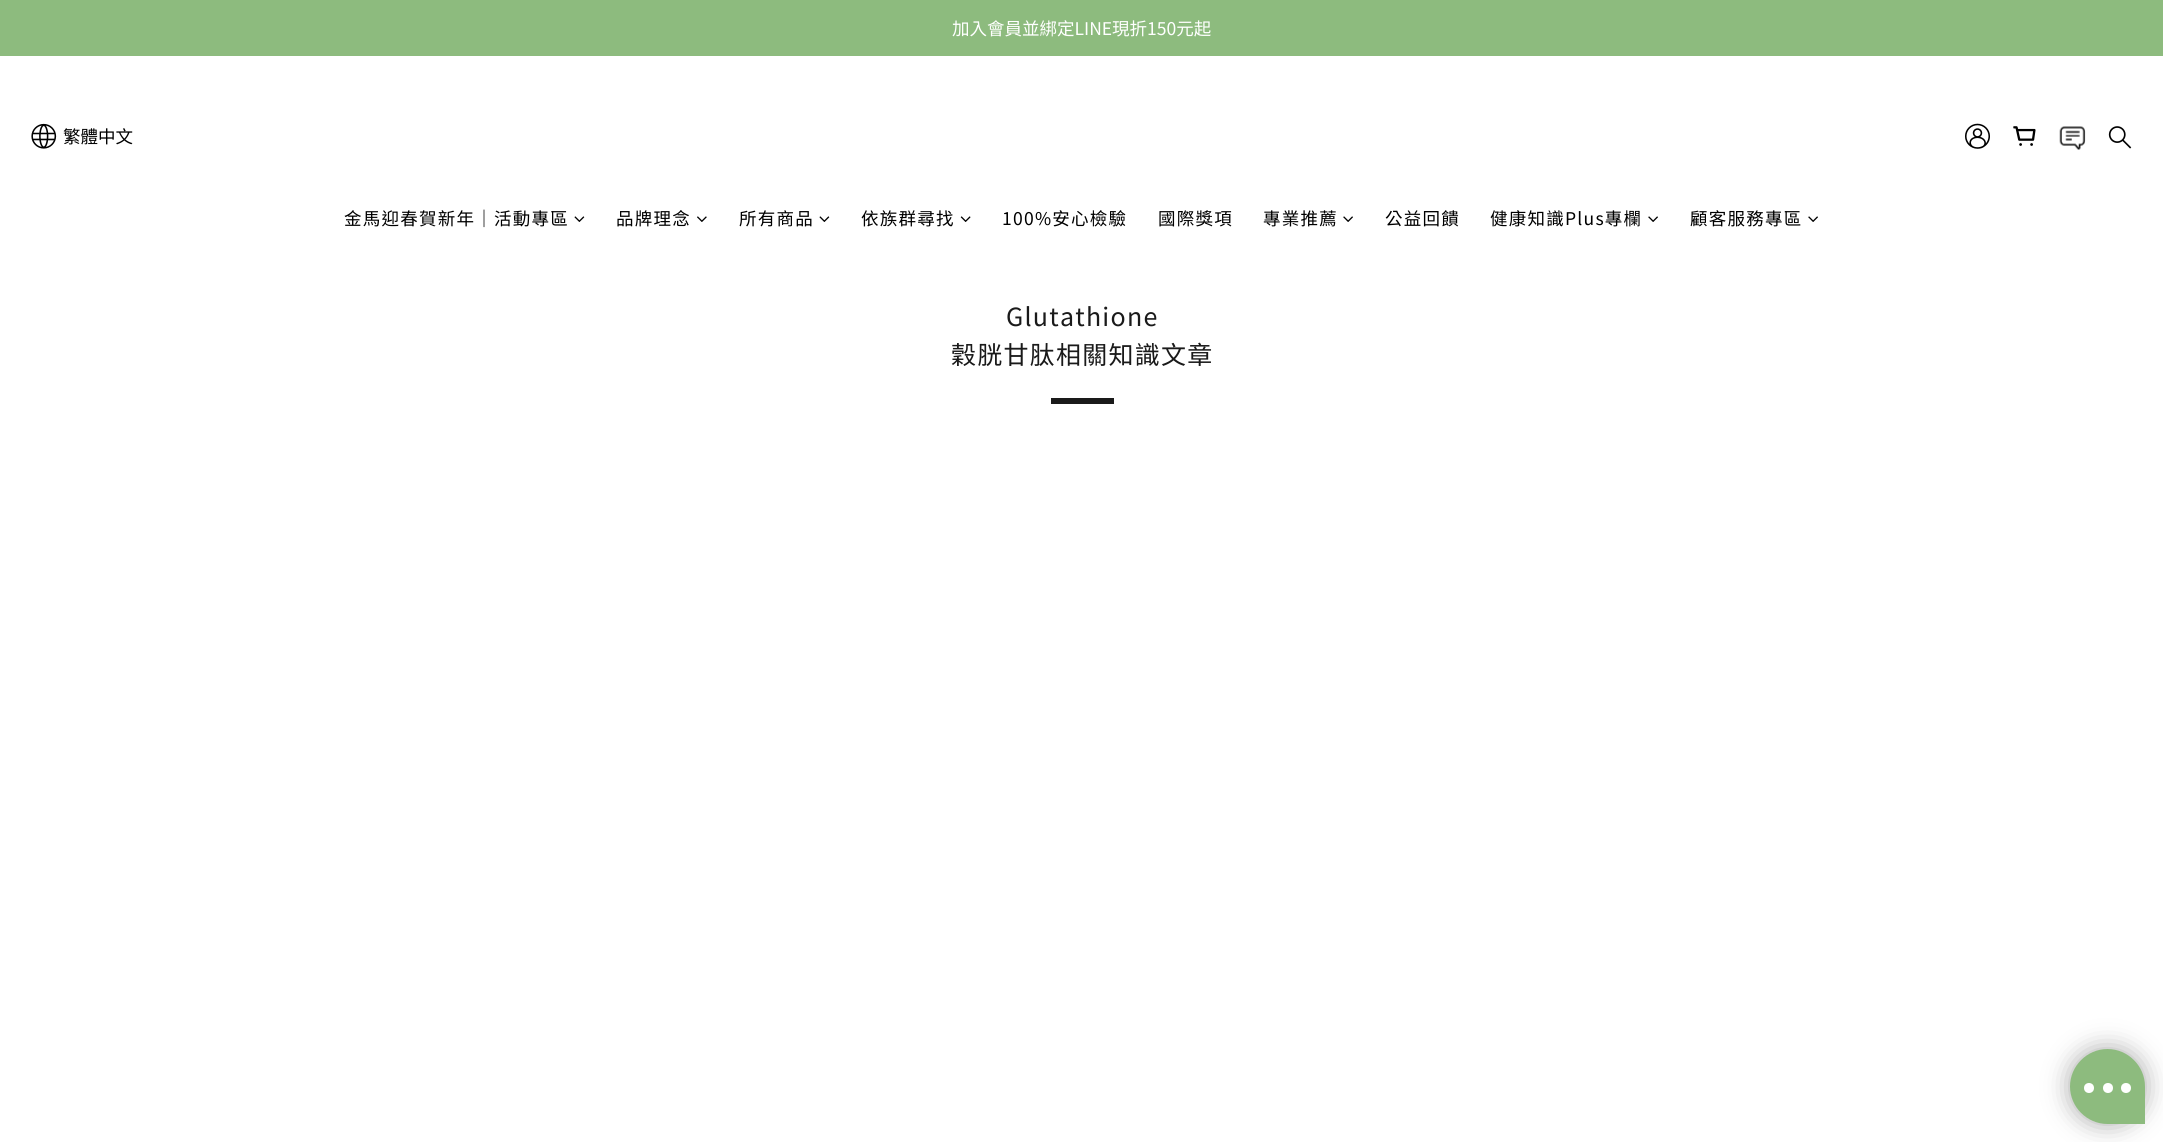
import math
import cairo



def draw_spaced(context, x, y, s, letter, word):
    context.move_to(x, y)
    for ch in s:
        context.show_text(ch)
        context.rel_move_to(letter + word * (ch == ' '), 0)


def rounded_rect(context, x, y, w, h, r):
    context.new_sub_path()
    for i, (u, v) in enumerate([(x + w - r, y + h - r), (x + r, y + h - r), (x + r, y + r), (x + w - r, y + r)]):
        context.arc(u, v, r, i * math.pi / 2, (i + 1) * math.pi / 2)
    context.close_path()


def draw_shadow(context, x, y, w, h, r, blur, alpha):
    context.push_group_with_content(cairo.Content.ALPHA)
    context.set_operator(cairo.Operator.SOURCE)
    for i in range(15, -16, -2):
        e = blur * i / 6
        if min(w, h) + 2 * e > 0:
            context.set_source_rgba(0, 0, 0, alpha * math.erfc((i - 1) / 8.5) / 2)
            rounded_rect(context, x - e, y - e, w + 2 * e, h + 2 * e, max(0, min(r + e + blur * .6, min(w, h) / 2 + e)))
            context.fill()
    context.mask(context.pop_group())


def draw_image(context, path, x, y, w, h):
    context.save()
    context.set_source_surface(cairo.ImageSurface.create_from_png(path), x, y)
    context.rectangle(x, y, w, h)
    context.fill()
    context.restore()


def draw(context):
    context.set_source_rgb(1, 1, 1)
    context.paint()
    context.set_source_rgb(141 / 255, 187 / 255, 126 / 255)
    context.rectangle(0, 0, 2163, 56)
    context.fill()
    draw_image(context, "images/1.png", 31, 123, 26, 26)
    draw_image(context, "images/2.png", 1965, 123, 25, 26)
    draw_image(context, "images/3.png", 2013, 126, 23, 20)
    draw_image(context, "images/4.png", 2059, 126, 27, 24)
    draw_image(context, "images/5.png", 2108, 126, 24, 23)
    draw_image(context, "images/6.png", 574, 216, 11, 6)
    draw_image(context, "images/7.png", 697, 216, 10, 6)
    draw_image(context, "images/6.png", 819, 216, 11, 6)
    draw_image(context, "images/8.png", 960, 216, 11, 6)
    draw_image(context, "images/9.png", 1343, 216, 10, 6)
    draw_image(context, "images/9.png", 1648, 216, 10, 6)
    draw_image(context, "images/9.png", 1808, 216, 10, 6)
    context.set_source_rgb(26 / 255, 26 / 255, 26 / 255)
    context.rectangle(1051, 398, 63, 6)
    context.fill()
    context.set_source_rgb(119 / 255, 119 / 255, 119 / 255)
    draw_shadow(context, 2070, 1049, 75, 75, 37.5, 12.5, 0.64)
    context.set_source_rgb(141 / 255, 187 / 255, 126 / 255)
    context.new_path()
    context.move_to(2107.5, 1049)
    context.curve_to(2128, 1049, 2145, 1066, 2145, 1086.5)
    context.line_to(2145, 1124)
    context.line_to(2107.5, 1124)
    context.curve_to(2087, 1124, 2070, 1107, 2070, 1086.5)
    context.curve_to(2070, 1066, 2087, 1049, 2107.5, 1049)
    context.close_path()
    context.fill()
    context.set_source_rgb(1, 1, 1)
    context.arc(2089, 1088, 5, 0, 2 * math.pi)
    context.fill()
    context.arc(2108, 1088, 5, 0, 2 * math.pi)
    context.fill()
    context.arc(2126, 1088, 5, 0, 2 * math.pi)
    context.fill()
    context.select_font_face("Noto Sans TC")
    context.set_font_size(17.5)
    context.move_to(952, 35)
    context.show_text("加入會員並綁定LINE現折150元起")
    context.set_source_rgb(0, 0, 0)
    context.move_to(63, 143)
    context.show_text("繁體中文")
    draw_spaced(context, 344, 225, "金馬迎春賀新年｜活動專區", 1.25, 0)
    draw_spaced(context, 616, 225, "品牌理念", 1.25, 0)
    draw_spaced(context, 739, 225, "所有商品", 1.25, 0)
    draw_spaced(context, 861, 225, "依族群尋找", 1.25, 0)
    draw_spaced(context, 1002, 225, "100%安心檢驗", 1.25, 0)
    draw_spaced(context, 1158, 225, "國際獎項", 1.25, 0)
    draw_spaced(context, 1263, 225, "專業推薦", 1.25, 0)
    draw_spaced(context, 1385, 225, "公益回饋", 1.25, 0)
    draw_spaced(context, 1490, 225, "健康知識Plus專欄", 1.25, 0)
    draw_spaced(context, 1690, 225, "顧客服務專區", 1.25, 0)
    context.set_font_size(25)
    context.set_source_rgb(26 / 255, 26 / 255, 26 / 255)
    draw_spaced(context, 1006, 326, "Glutathione", 1.25, 0)
    draw_spaced(context, 951, 364, "穀胱甘肽相關知識文章", 1.25, 0)


surface = cairo.ImageSurface(cairo.Format.RGB24, 2163, 1142)
context = cairo.Context(surface)
options = cairo.FontOptions()
options.set_hint_metrics(cairo.HintMetrics.OFF)
options.set_hint_style(cairo.HintStyle.NONE)
context.set_font_options(options)
context.set_miter_limit(4)
draw(context)
surface.write_to_png("out.png")
